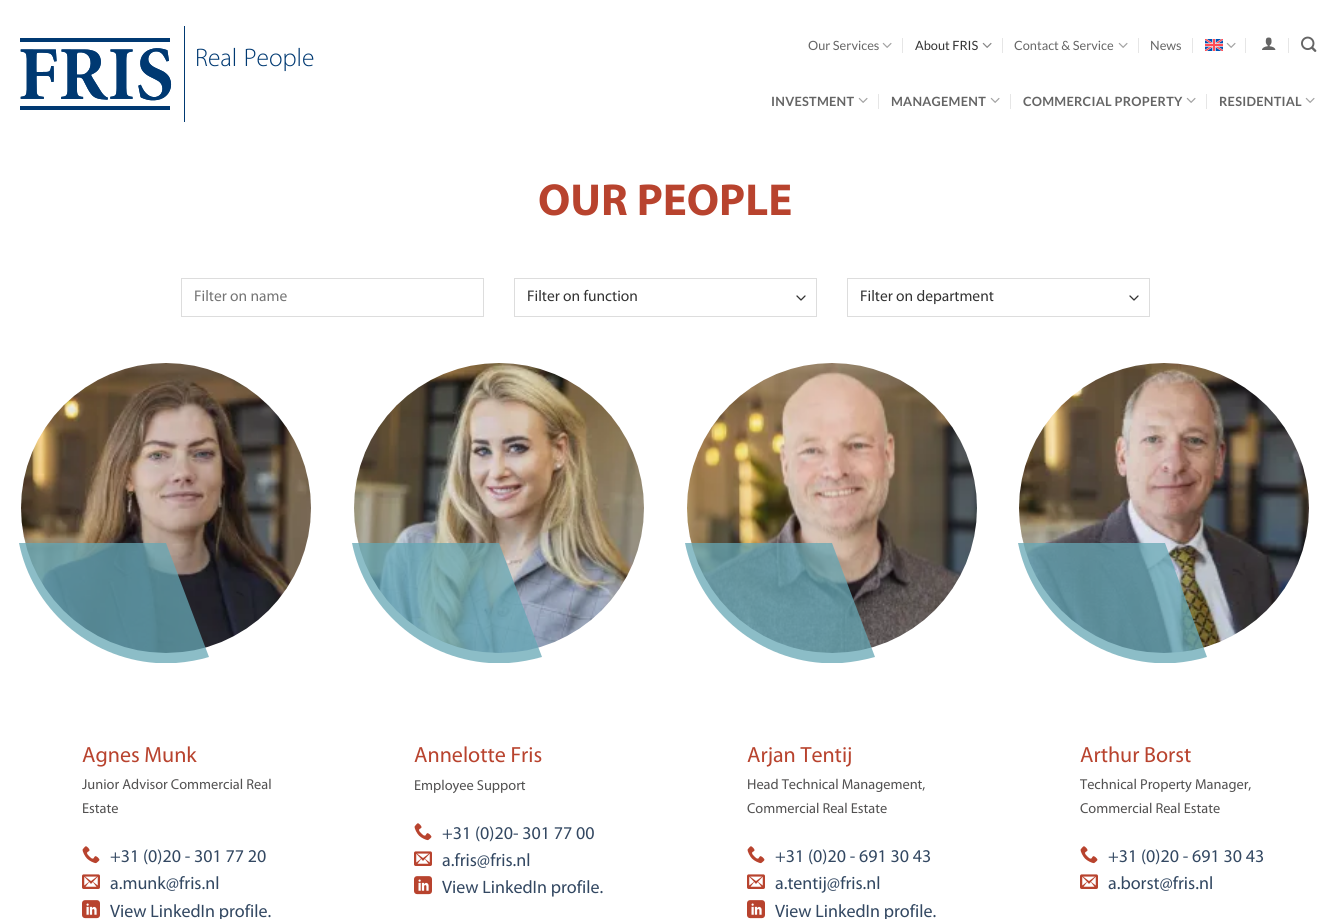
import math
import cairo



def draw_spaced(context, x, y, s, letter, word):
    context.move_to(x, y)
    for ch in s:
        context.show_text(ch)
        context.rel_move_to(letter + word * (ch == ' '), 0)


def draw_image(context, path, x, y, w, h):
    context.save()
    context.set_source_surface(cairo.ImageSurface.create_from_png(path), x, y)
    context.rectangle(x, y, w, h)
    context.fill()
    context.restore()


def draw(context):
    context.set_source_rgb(1, 1, 1)
    context.paint()
    draw_image(context, "images/1.png", 882, 42, 10, 6)
    context.set_source_rgb(230 / 255, 230 / 255, 230 / 255)
    context.rectangle(902, 38, 1, 15)
    context.fill()
    draw_image(context, "images/2.png", 982, 42, 10, 6)
    context.rectangle(1002, 38, 1, 15)
    context.fill()
    draw_image(context, "images/1.png", 1118, 42, 10, 6)
    context.rectangle(1138, 38, 1, 15)
    context.fill()
    context.rectangle(1192, 38, 1, 15)
    context.fill()
    draw_image(context, "images/3.png", 1205, 39, 18, 12)
    draw_image(context, "images/1.png", 1226, 42, 10, 6)
    context.rectangle(1245, 38, 1, 15)
    context.fill()
    draw_image(context, "images/4.png", 1262, 37, 14, 13)
    context.rectangle(1288, 38, 1, 15)
    context.fill()
    draw_image(context, "images/5.png", 1301, 36, 16, 16)
    draw_image(context, "images/6.png", 20, 26, 165, 96)
    draw_image(context, "images/1.png", 858, 97, 10, 6)
    context.rectangle(878, 94, 1, 15)
    context.fill()
    draw_image(context, "images/1.png", 990, 97, 10, 6)
    context.rectangle(1010, 94, 1, 15)
    context.fill()
    draw_image(context, "images/1.png", 1186, 97, 10, 6)
    context.rectangle(1206, 94, 1, 15)
    context.fill()
    draw_image(context, "images/1.png", 1305, 97, 10, 6)
    context.rectangle(181.5, 278.5, 302, 38)
    context.set_source_rgb(221 / 255, 221 / 255, 221 / 255)
    context.set_line_width(1)
    context.stroke()
    context.new_path()
    context.move_to(797, 296)
    context.line_to(801, 300)
    context.line_to(805, 296)
    context.set_source_rgb(51 / 255, 51 / 255, 51 / 255)
    context.set_line_width(1.3)
    context.set_line_cap(cairo.LineCap.ROUND)
    context.set_line_join(cairo.LineJoin.ROUND)
    context.stroke()
    context.rectangle(514.5, 278.5, 302, 38)
    context.set_source_rgb(221 / 255, 221 / 255, 221 / 255)
    context.set_line_width(1)
    context.set_line_cap(cairo.LineCap.BUTT)
    context.set_line_join(cairo.LineJoin.MITER)
    context.stroke()
    context.new_path()
    context.move_to(1130, 296)
    context.line_to(1134, 300)
    context.line_to(1138, 296)
    context.set_source_rgb(51 / 255, 51 / 255, 51 / 255)
    context.set_line_width(1.3)
    context.set_line_cap(cairo.LineCap.ROUND)
    context.set_line_join(cairo.LineJoin.ROUND)
    context.stroke()
    context.rectangle(847.5, 278.5, 302, 38)
    context.set_source_rgb(221 / 255, 221 / 255, 221 / 255)
    context.set_line_width(1)
    context.set_line_cap(cairo.LineCap.BUTT)
    context.set_line_join(cairo.LineJoin.MITER)
    context.stroke()
    draw_image(context, "images/7.png", 21, 363, 290, 290)
    context.set_source_rgba(102 / 255, 167 / 255, 180 / 255, 0.75)
    context.new_path()
    context.move_to(156, 663)
    context.curve_to(88, 658, 32, 608, 19, 543)
    context.line_to(166, 543)
    context.line_to(209, 657)
    context.curve_to(199, 660, 188, 662, 176, 663)
    context.close_path()
    context.fill()
    draw_image(context, "images/8.png", 82, 846, 18, 18)
    draw_image(context, "images/9.png", 82, 874, 18, 15)
    draw_image(context, "images/10.png", 82, 900, 18, 19)
    draw_image(context, "images/11.png", 354, 363, 290, 290)
    context.new_path()
    context.move_to(489, 663)
    context.curve_to(421, 658, 365, 608, 352, 543)
    context.line_to(499, 543)
    context.line_to(542, 657)
    context.curve_to(531, 660, 521, 662, 509, 663)
    context.close_path()
    context.fill()
    draw_image(context, "images/8.png", 414, 823, 18, 18)
    draw_image(context, "images/9.png", 414, 851, 18, 15)
    draw_image(context, "images/10.png", 414, 876, 18, 19)
    draw_image(context, "images/12.png", 687, 363, 290, 290)
    context.new_path()
    context.move_to(822, 663)
    context.curve_to(754, 658, 698, 608, 685, 543)
    context.line_to(832, 543)
    context.line_to(875, 657)
    context.curve_to(864, 660, 853, 662, 842, 663)
    context.close_path()
    context.fill()
    draw_image(context, "images/8.png", 747, 846, 18, 18)
    draw_image(context, "images/9.png", 747, 874, 18, 15)
    draw_image(context, "images/10.png", 747, 900, 18, 19)
    draw_image(context, "images/13.png", 1019, 363, 290, 290)
    context.new_path()
    context.move_to(1155, 663)
    context.curve_to(1087, 658, 1031, 608, 1018, 543)
    context.line_to(1165, 543)
    context.line_to(1207, 657)
    context.curve_to(1197, 660, 1186, 662, 1175, 663)
    context.close_path()
    context.fill()
    draw_image(context, "images/8.png", 1080, 846, 18, 18)
    draw_image(context, "images/9.png", 1080, 874, 18, 15)
    context.select_font_face("Lato")
    context.set_font_size(12.75)
    context.set_source_rgb(101 / 255, 101 / 255, 101 / 255)
    context.move_to(808, 50)
    context.show_text("Our Services")
    context.set_source_rgb(51 / 255, 51 / 255, 51 / 255)
    context.move_to(915, 50)
    context.show_text("About FRIS")
    context.set_source_rgb(101 / 255, 101 / 255, 101 / 255)
    context.move_to(1014, 50)
    context.show_text("Contact & Service")
    context.move_to(1150, 50)
    context.show_text("News")
    context.select_font_face("Myriad Light")
    context.set_font_size(25.5)
    context.set_source_rgb(0, 57 / 255, 114 / 255)
    draw_spaced(context, 195, 66, "Real People", 0, 1)
    context.select_font_face("Lato", cairo.FontSlant.NORMAL, cairo.FontWeight.BOLD)
    context.set_font_size(12.75)
    context.set_source_rgb(101 / 255, 101 / 255, 101 / 255)
    draw_spaced(context, 771, 106, "INVESTMENT", 0.25, 0)
    draw_spaced(context, 891, 106, "MANAGEMENT", 0.25, 0)
    draw_spaced(context, 1023, 106, "COMMERCIAL PROPERTY", 0.25, 0)
    draw_spaced(context, 1219, 106, "RESIDENTIAL", 0.25, 0)
    context.select_font_face("Myriad", cairo.FontSlant.NORMAL, cairo.FontWeight.BOLD)
    context.set_font_size(45)
    context.set_source_rgb(184 / 255, 67 / 255, 46 / 255)
    context.move_to(538, 215)
    context.show_text("OUR PEOPLE")
    context.select_font_face("Myriad")
    context.set_font_size(15.5)
    context.set_source_rgb(117 / 255, 117 / 255, 117 / 255)
    context.move_to(194, 301)
    context.show_text("Filter on name")
    context.set_source_rgb(51 / 255, 51 / 255, 51 / 255)
    context.move_to(527, 301)
    context.show_text("Filter on function")
    context.move_to(860, 301)
    context.show_text("Filter on department")
    context.set_font_size(22)
    context.set_source_rgb(184 / 255, 67 / 255, 46 / 255)
    context.move_to(82, 762)
    context.show_text("Agnes Munk")
    context.set_font_size(14.4)
    context.set_source_rgb(82 / 255, 81 / 255, 81 / 255)
    context.move_to(82, 789)
    context.show_text("Junior Advisor Commercial Real")
    context.move_to(82, 813)
    context.show_text("Estate")
    context.set_font_size(18)
    context.set_source_rgb(51 / 255, 72 / 255, 98 / 255)
    context.move_to(110, 862)
    context.show_text("+31 (0)20 - 301 77 20")
    context.move_to(110, 889)
    context.show_text("a.munk@fris.nl")
    context.move_to(110, 917)
    context.show_text("View LinkedIn profile.")
    context.set_font_size(22)
    context.set_source_rgb(184 / 255, 67 / 255, 46 / 255)
    context.move_to(414, 762)
    context.show_text("Annelotte Fris")
    context.set_font_size(14.4)
    context.set_source_rgb(82 / 255, 81 / 255, 81 / 255)
    context.move_to(414, 790)
    context.show_text("Employee Support")
    context.set_font_size(18)
    context.set_source_rgb(51 / 255, 72 / 255, 98 / 255)
    context.move_to(442, 839)
    context.show_text("+31 (0)20- 301 77 00")
    context.move_to(442, 866)
    context.show_text("a.fris@fris.nl")
    context.move_to(442, 893)
    context.show_text("View LinkedIn profile.")
    context.set_font_size(22)
    context.set_source_rgb(184 / 255, 67 / 255, 46 / 255)
    context.move_to(747, 762)
    context.show_text("Arjan Tentij")
    context.set_font_size(14.4)
    context.set_source_rgb(82 / 255, 81 / 255, 81 / 255)
    context.move_to(747, 789)
    context.show_text("Head Technical Management,")
    context.move_to(747, 813)
    context.show_text("Commercial Real Estate")
    context.set_font_size(18)
    context.set_source_rgb(51 / 255, 72 / 255, 98 / 255)
    context.move_to(775, 862)
    context.show_text("+31 (0)20 - 691 30 43")
    context.move_to(775, 889)
    context.show_text("a.tentij@fris.nl")
    context.move_to(775, 917)
    context.show_text("View LinkedIn profile.")
    context.set_font_size(22)
    context.set_source_rgb(184 / 255, 67 / 255, 46 / 255)
    context.move_to(1080, 762)
    context.show_text("Arthur Borst")
    context.set_font_size(14.4)
    context.set_source_rgb(82 / 255, 81 / 255, 81 / 255)
    context.move_to(1080, 789)
    context.show_text("Technical Property Manager,")
    context.move_to(1080, 813)
    context.show_text("Commercial Real Estate")
    context.set_font_size(18)
    context.set_source_rgb(51 / 255, 72 / 255, 98 / 255)
    context.move_to(1108, 862)
    context.show_text("+31 (0)20 - 691 30 43")
    context.move_to(1108, 889)
    context.show_text("a.borst@fris.nl")


surface = cairo.ImageSurface(cairo.Format.RGB24, 1331, 919)
context = cairo.Context(surface)
options = cairo.FontOptions()
options.set_hint_metrics(cairo.HintMetrics.OFF)
options.set_hint_style(cairo.HintStyle.NONE)
context.set_font_options(options)
context.set_miter_limit(4)
draw(context)
surface.write_to_png("out.png")
